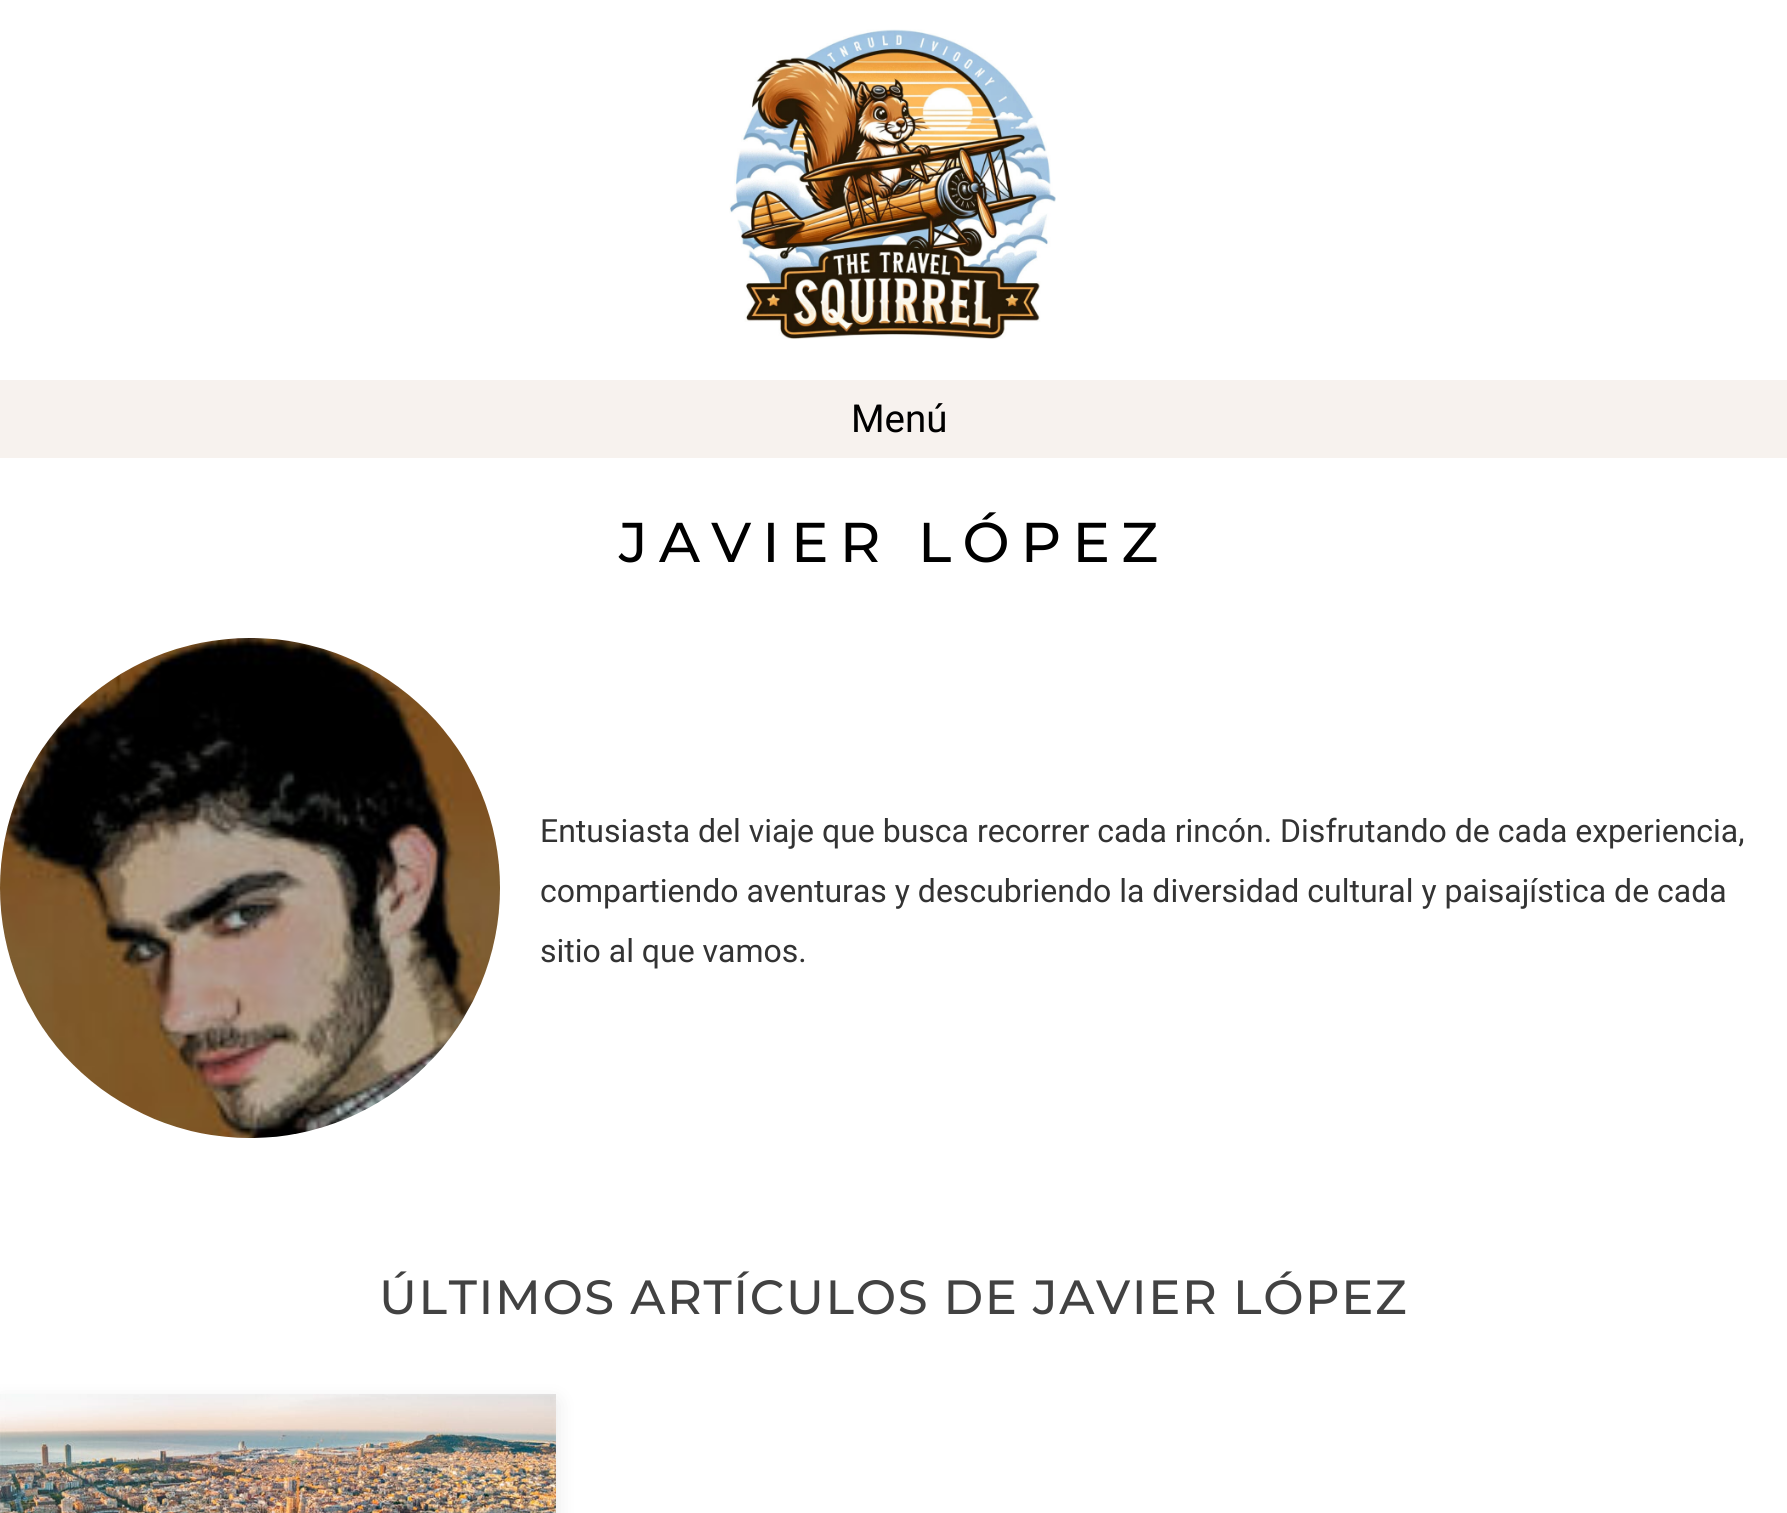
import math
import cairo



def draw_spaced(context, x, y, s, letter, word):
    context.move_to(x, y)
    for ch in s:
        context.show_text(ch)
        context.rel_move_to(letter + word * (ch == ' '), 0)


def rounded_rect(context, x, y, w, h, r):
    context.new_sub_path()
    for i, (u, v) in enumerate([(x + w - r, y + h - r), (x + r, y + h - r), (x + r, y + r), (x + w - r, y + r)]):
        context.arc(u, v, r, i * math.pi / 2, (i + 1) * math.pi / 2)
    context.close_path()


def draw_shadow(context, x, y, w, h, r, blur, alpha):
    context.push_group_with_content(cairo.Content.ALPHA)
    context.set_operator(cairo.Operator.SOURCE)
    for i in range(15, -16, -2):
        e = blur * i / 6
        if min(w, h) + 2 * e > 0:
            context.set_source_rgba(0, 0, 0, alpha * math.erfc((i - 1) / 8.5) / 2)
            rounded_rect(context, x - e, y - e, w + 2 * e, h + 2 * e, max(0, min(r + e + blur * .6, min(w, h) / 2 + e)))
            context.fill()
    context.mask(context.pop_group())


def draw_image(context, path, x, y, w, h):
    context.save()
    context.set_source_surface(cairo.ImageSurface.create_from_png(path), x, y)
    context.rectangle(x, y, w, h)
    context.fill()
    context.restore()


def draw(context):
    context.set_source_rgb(1, 1, 1)
    context.paint()
    draw_image(context, "images/1.png", 729, 29, 327, 310)
    context.set_source_rgb(247 / 255, 242 / 255, 238 / 255)
    context.rectangle(0, 380, 1787, 78)
    context.fill()
    draw_image(context, "images/2.png", 0, 638, 500, 500)
    context.set_source_rgb(0, 0, 0)
    draw_shadow(context, 0, 1402, 556, 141, 0, 10, 0.1)
    draw_image(context, "images/3.png", 0, 1394, 556, 119)
    context.select_font_face("Roboto")
    context.set_font_size(38.5)
    context.set_source_rgb(0, 0, 0)
    context.move_to(851, 432)
    context.show_text("Menú")
    context.select_font_face("Montserrat Medium")
    context.set_font_size(56)
    draw_spaced(context, 619, 562, "JAVIER LÓPEZ", 11.25, 0)
    context.select_font_face("Roboto")
    context.set_font_size(32)
    context.set_source_rgb(51 / 255, 51 / 255, 51 / 255)
    context.move_to(540, 842)
    context.show_text("Entusiasta del viaje que busca recorrer cada rincón. Disfrutando de cada experiencia,")
    context.move_to(540, 902)
    context.show_text("compartiendo aventuras y descubriendo la diversidad cultural y paisajística de cada")
    context.move_to(540, 962)
    context.show_text("sitio al que vamos.")
    context.select_font_face("Montserrat Medium")
    context.set_font_size(48)
    context.set_source_rgb(66 / 255, 66 / 255, 66 / 255)
    draw_spaced(context, 379, 1314, "ÚLTIMOS ARTÍCULOS DE JAVIER LÓPEZ", 1.6, 0)


surface = cairo.ImageSurface(cairo.Format.RGB24, 1787, 1513)
context = cairo.Context(surface)
options = cairo.FontOptions()
options.set_hint_metrics(cairo.HintMetrics.OFF)
options.set_hint_style(cairo.HintStyle.NONE)
context.set_font_options(options)
context.set_miter_limit(4)
draw(context)
surface.write_to_png("out.png")
